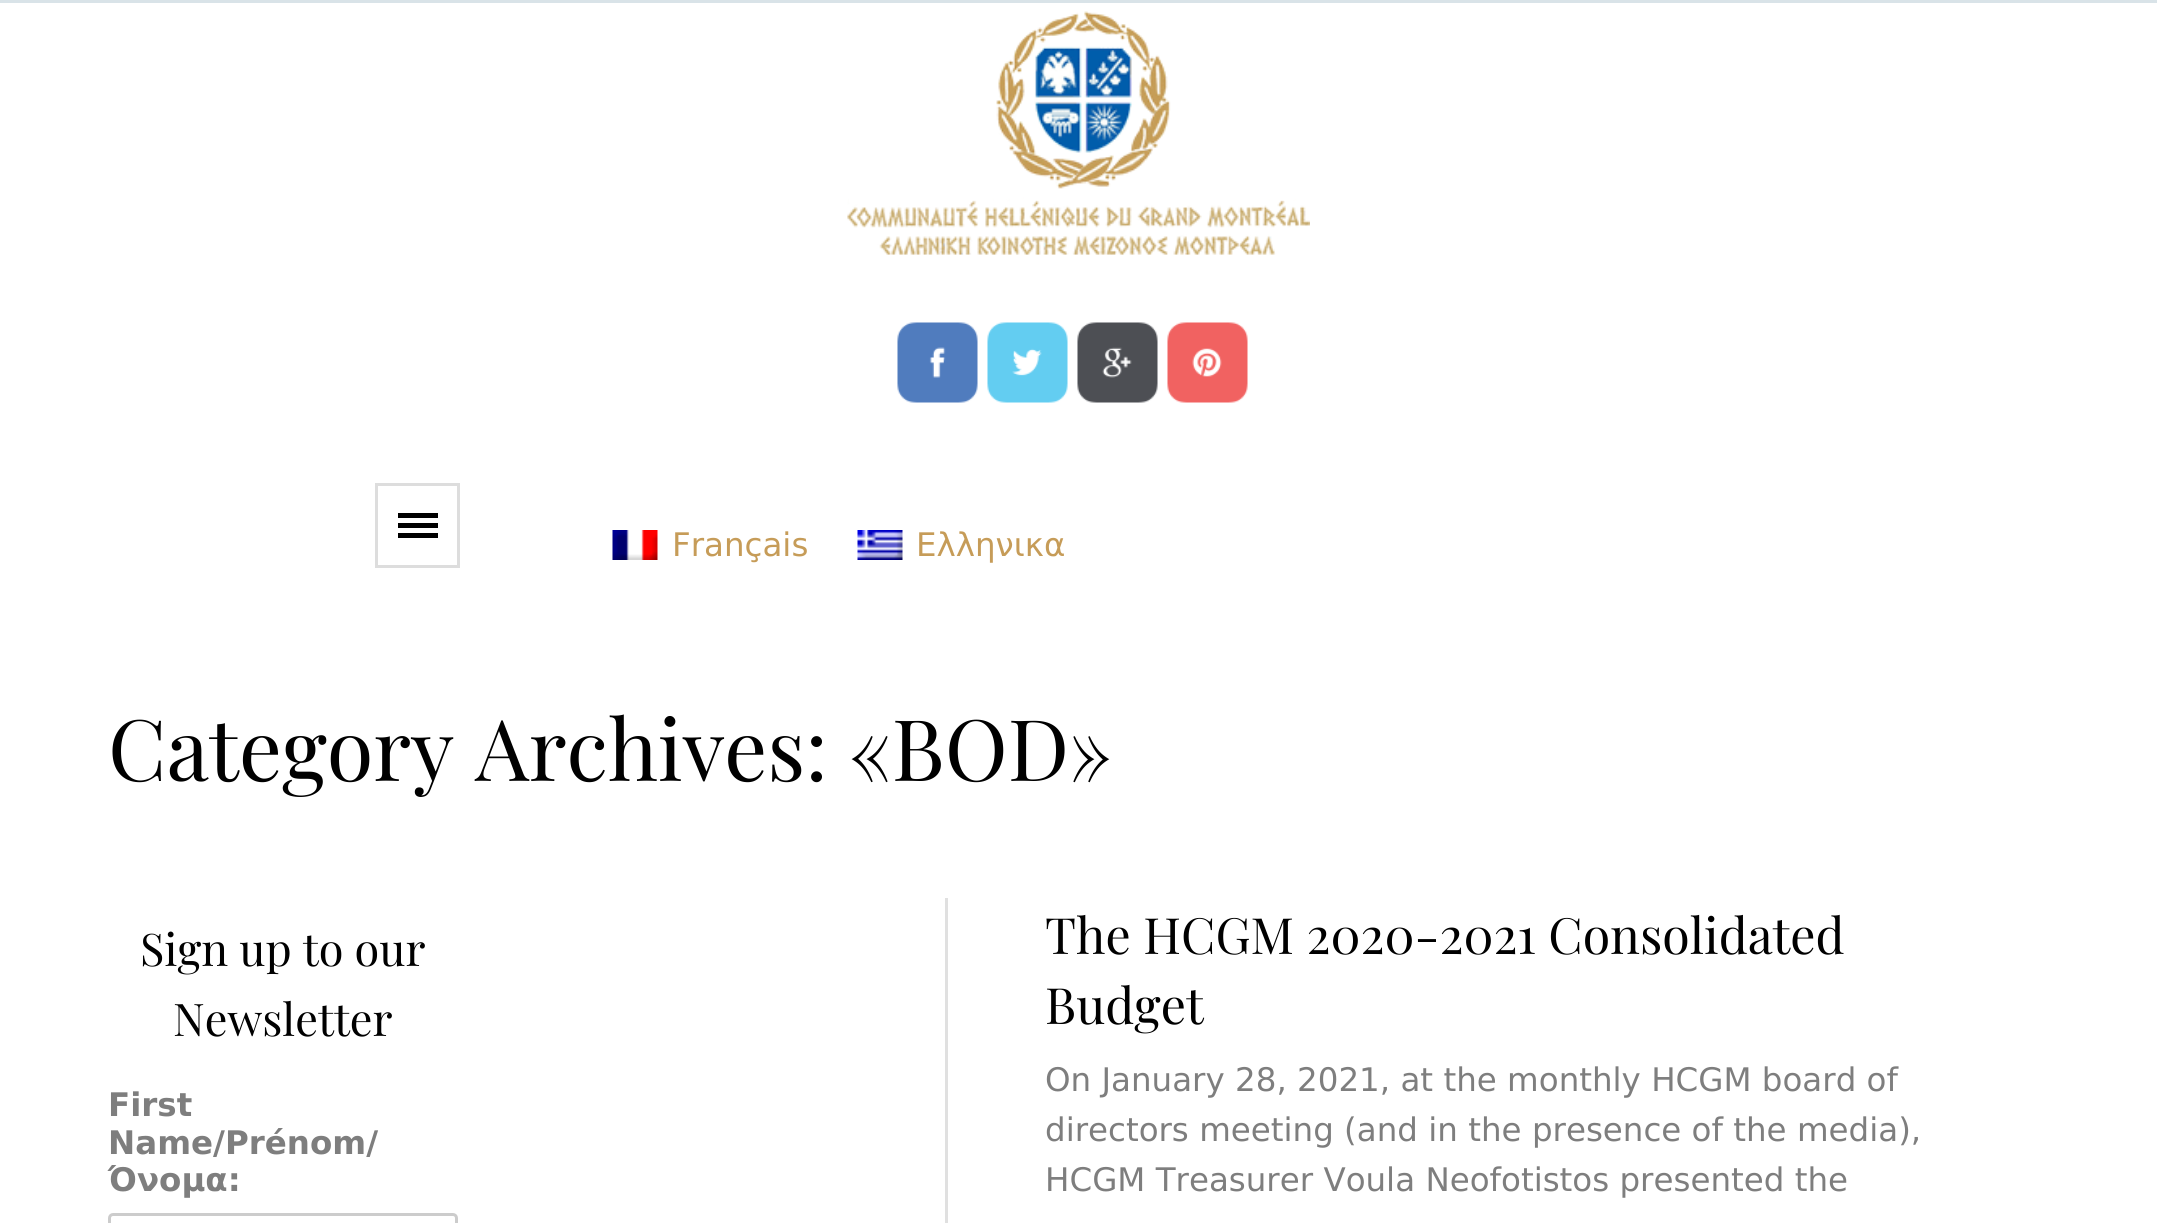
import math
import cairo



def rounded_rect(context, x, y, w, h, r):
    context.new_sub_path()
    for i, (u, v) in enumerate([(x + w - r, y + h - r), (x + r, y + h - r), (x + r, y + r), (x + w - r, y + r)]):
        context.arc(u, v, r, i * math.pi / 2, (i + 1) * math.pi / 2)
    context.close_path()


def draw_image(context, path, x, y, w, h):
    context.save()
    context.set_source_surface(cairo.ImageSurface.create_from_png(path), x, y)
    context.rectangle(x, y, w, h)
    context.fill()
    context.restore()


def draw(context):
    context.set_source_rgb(1, 1, 1)
    context.paint()
    context.set_source_rgb(217 / 255, 227 / 255, 232 / 255)
    context.rectangle(0, 0, 2157, 3)
    context.fill()
    context.rectangle(376.5, 484.5, 82, 82)
    context.set_source_rgb(221 / 255, 221 / 255, 221 / 255)
    context.set_line_width(3)
    context.stroke()
    context.set_source_rgb(0, 0, 0)
    context.rectangle(398, 513, 40, 5)
    context.fill()
    context.rectangle(398, 523, 40, 5)
    context.fill()
    context.rectangle(398, 533, 40, 5)
    context.fill()
    draw_image(context, "images/1.png", 847, 11, 463, 244)
    draw_image(context, "images/2.png", 897, 322, 81, 81)
    draw_image(context, "images/3.png", 987, 322, 81, 81)
    draw_image(context, "images/4.png", 1077, 322, 81, 81)
    draw_image(context, "images/5.png", 1167, 322, 81, 81)
    draw_image(context, "images/6.png", 612, 530, 46, 30)
    draw_image(context, "images/7.png", 857, 530, 46, 30)
    rounded_rect(context, 109.5, 1214.5, 347, 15, 3.5)
    context.set_source_rgb(204 / 255, 204 / 255, 204 / 255)
    context.stroke()
    context.set_source_rgb(224 / 255, 224 / 255, 224 / 255)
    context.rectangle(945, 898, 3, 325)
    context.fill()
    context.select_font_face("DejaVu Sans")
    context.set_font_size(32.5)
    context.set_source_rgb(198 / 255, 156 / 255, 88 / 255)
    context.move_to(672, 556)
    context.show_text("Français")
    context.move_to(916, 556)
    context.show_text("Ελληνικα")
    context.select_font_face("Playfair Display")
    context.set_font_size(85)
    context.set_source_rgb(0, 0, 0)
    context.move_to(108, 781)
    context.show_text("Category Archives: «BOD»")
    context.set_font_size(45)
    context.move_to(140, 966)
    context.show_text("Sign up to our")
    context.move_to(173, 1036)
    context.show_text("Newsletter")
    context.select_font_face("DejaVu Sans", cairo.FontSlant.NORMAL, cairo.FontWeight.BOLD)
    context.set_font_size(32.5)
    context.set_source_rgb(126 / 255, 126 / 255, 126 / 255)
    context.move_to(108, 1116)
    context.show_text("First")
    context.move_to(108, 1154)
    context.show_text("Name/Prénom/")
    context.move_to(108, 1191)
    context.show_text("Όνομα:")
    context.select_font_face("Playfair Display")
    context.set_font_size(50)
    context.set_source_rgb(0, 0, 0)
    context.move_to(1045, 954)
    context.show_text("The HCGM 2020-2021 Consolidated")
    context.move_to(1045, 1024)
    context.show_text("Budget")
    context.select_font_face("DejaVu Sans")
    context.set_font_size(32.5)
    context.set_source_rgb(126 / 255, 126 / 255, 126 / 255)
    context.move_to(1045, 1091)
    context.show_text("On January 28, 2021, at the monthly HCGM board of")
    context.move_to(1045, 1141)
    context.show_text("directors meeting (and in the presence of the media),")
    context.move_to(1045, 1191)
    context.show_text("HCGM Treasurer Voula Neofotistos presented the")


surface = cairo.ImageSurface(cairo.Format.RGB24, 2157, 1223)
context = cairo.Context(surface)
options = cairo.FontOptions()
options.set_hint_metrics(cairo.HintMetrics.OFF)
options.set_hint_style(cairo.HintStyle.NONE)
context.set_font_options(options)
context.set_miter_limit(4)
draw(context)
surface.write_to_png("out.png")
